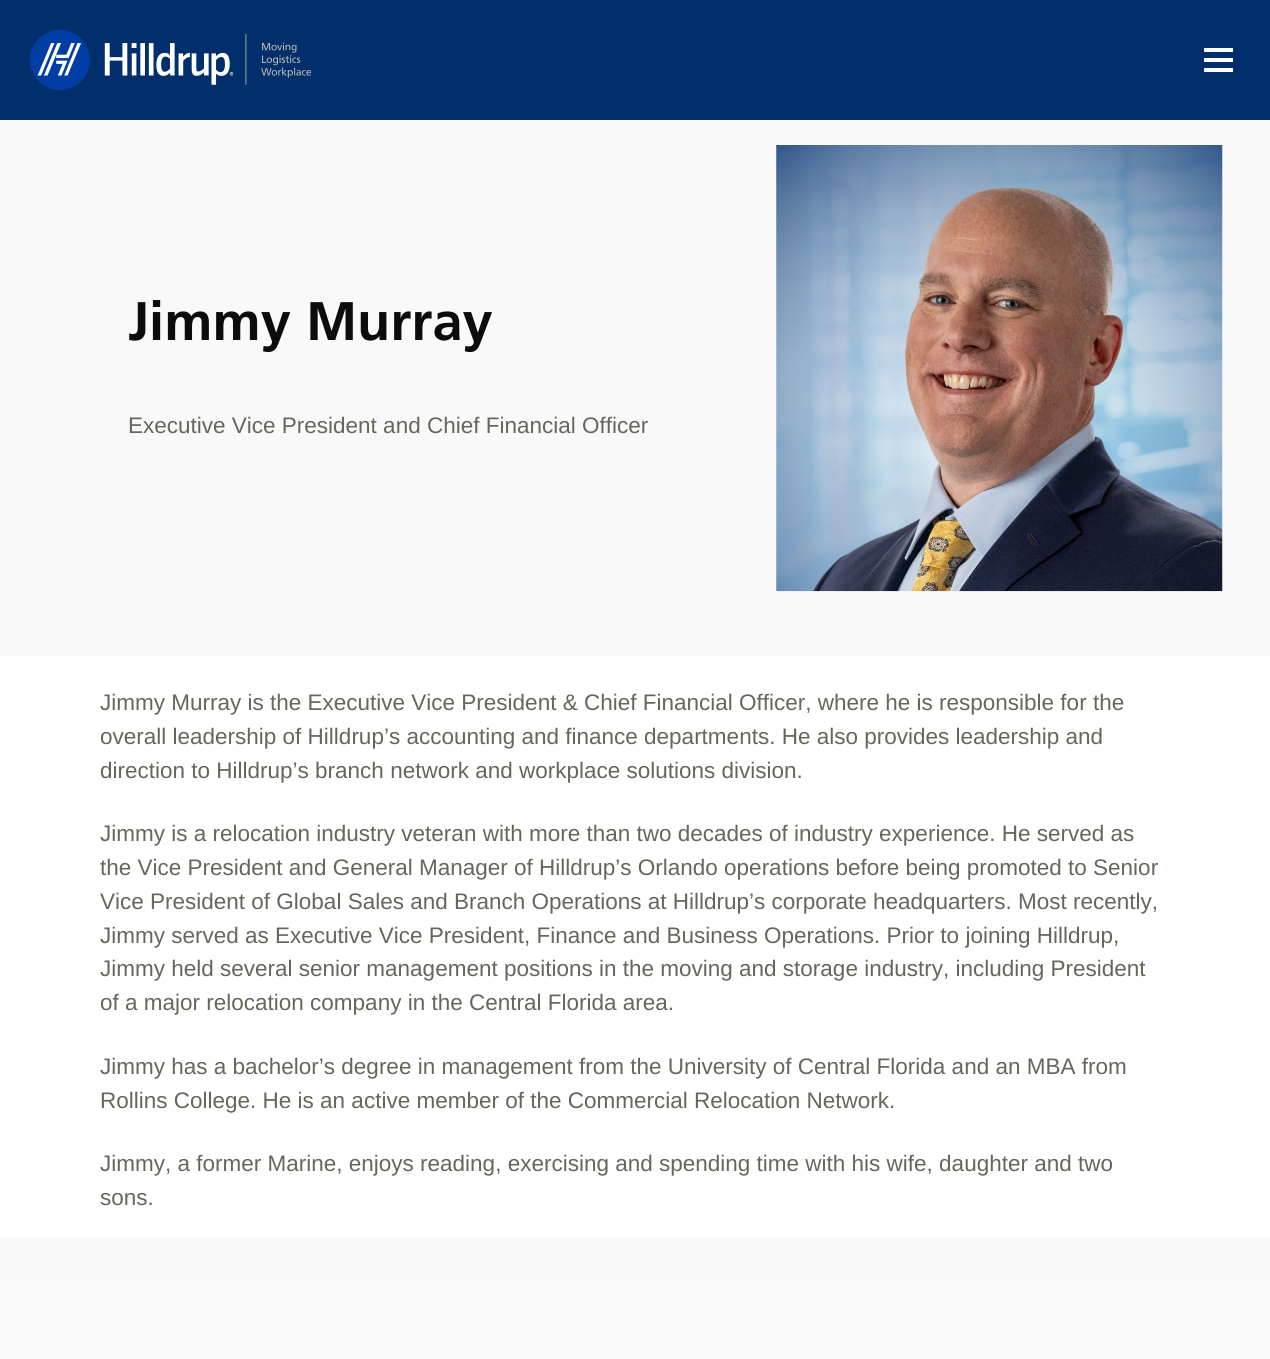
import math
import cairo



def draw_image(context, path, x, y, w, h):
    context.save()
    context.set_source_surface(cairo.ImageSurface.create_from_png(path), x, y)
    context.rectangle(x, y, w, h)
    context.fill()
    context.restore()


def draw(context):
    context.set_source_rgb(1, 1, 1)
    context.paint()
    context.set_source_rgb(0, 47 / 255, 108 / 255)
    context.rectangle(0, 0, 1270, 120)
    context.fill()
    draw_image(context, "images/1.png", 30, 30, 281, 60)
    context.set_source_rgb(1, 1, 1)
    context.rectangle(1204, 48, 29, 4)
    context.fill()
    context.rectangle(1204, 58, 29, 4)
    context.fill()
    context.rectangle(1204, 68, 29, 4)
    context.fill()
    context.set_source_rgb(249 / 255, 249 / 255, 249 / 255)
    context.rectangle(0, 120, 1270, 536)
    context.fill()
    draw_image(context, "images/2.png", 776, 145, 447, 447)
    gradient = cairo.LinearGradient(635, 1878, 635, 1238)
    gradient.add_color_stop_rgba(0.22, 1, 1, 1, 1)
    gradient.add_color_stop_rgba(1, 249 / 255, 249 / 255, 249 / 255, 1)
    context.set_source(gradient)
    context.rectangle(0, 1238, 1270, 121)
    context.fill()
    context.select_font_face("Frutiger", cairo.FontSlant.NORMAL, cairo.FontWeight.BOLD)
    context.set_font_size(54.25)
    context.set_source_rgb(12 / 255, 12 / 255, 12 / 255)
    context.move_to(128, 340)
    context.show_text("Jimmy Murray")
    context.select_font_face("Liberation Sans")
    context.set_font_size(22.5)
    context.set_source_rgb(101 / 255, 102 / 255, 92 / 255)
    context.move_to(128, 433)
    context.show_text("Executive Vice President and Chief Financial Officer")
    context.move_to(100, 710)
    context.show_text("Jimmy Murray is the Executive Vice President & Chief Financial Officer, where he is responsible for the")
    context.move_to(100, 744)
    context.show_text("overall leadership of Hilldrup’s accounting and finance departments. He also provides leadership and")
    context.move_to(100, 778)
    context.show_text("direction to Hilldrup’s branch network and workplace solutions division.")
    context.move_to(100, 841)
    context.show_text("Jimmy is a relocation industry veteran with more than two decades of industry experience. He served as")
    context.move_to(100, 875)
    context.show_text("the Vice President and General Manager of Hilldrup’s Orlando operations before being promoted to Senior")
    context.move_to(100, 909)
    context.show_text("Vice President of Global Sales and Branch Operations at Hilldrup’s corporate headquarters. Most recently,")
    context.move_to(100, 943)
    context.show_text("Jimmy served as Executive Vice President, Finance and Business Operations. Prior to joining Hilldrup,")
    context.move_to(100, 976)
    context.show_text("Jimmy held several senior management positions in the moving and storage industry, including President")
    context.move_to(100, 1010)
    context.show_text("of a major relocation company in the Central Florida area.")
    context.move_to(100, 1074)
    context.show_text("Jimmy has a bachelor’s degree in management from the University of Central Florida and an MBA from")
    context.move_to(100, 1108)
    context.show_text("Rollins College. He is an active member of the Commercial Relocation Network.")
    context.move_to(100, 1171)
    context.show_text("Jimmy, a former Marine, enjoys reading, exercising and spending time with his wife, daughter and two")
    context.move_to(100, 1205)
    context.show_text("sons.")


surface = cairo.ImageSurface(cairo.Format.RGB24, 1270, 1359)
context = cairo.Context(surface)
options = cairo.FontOptions()
options.set_hint_metrics(cairo.HintMetrics.OFF)
options.set_hint_style(cairo.HintStyle.NONE)
context.set_font_options(options)
context.set_miter_limit(4)
draw(context)
surface.write_to_png("out.png")
